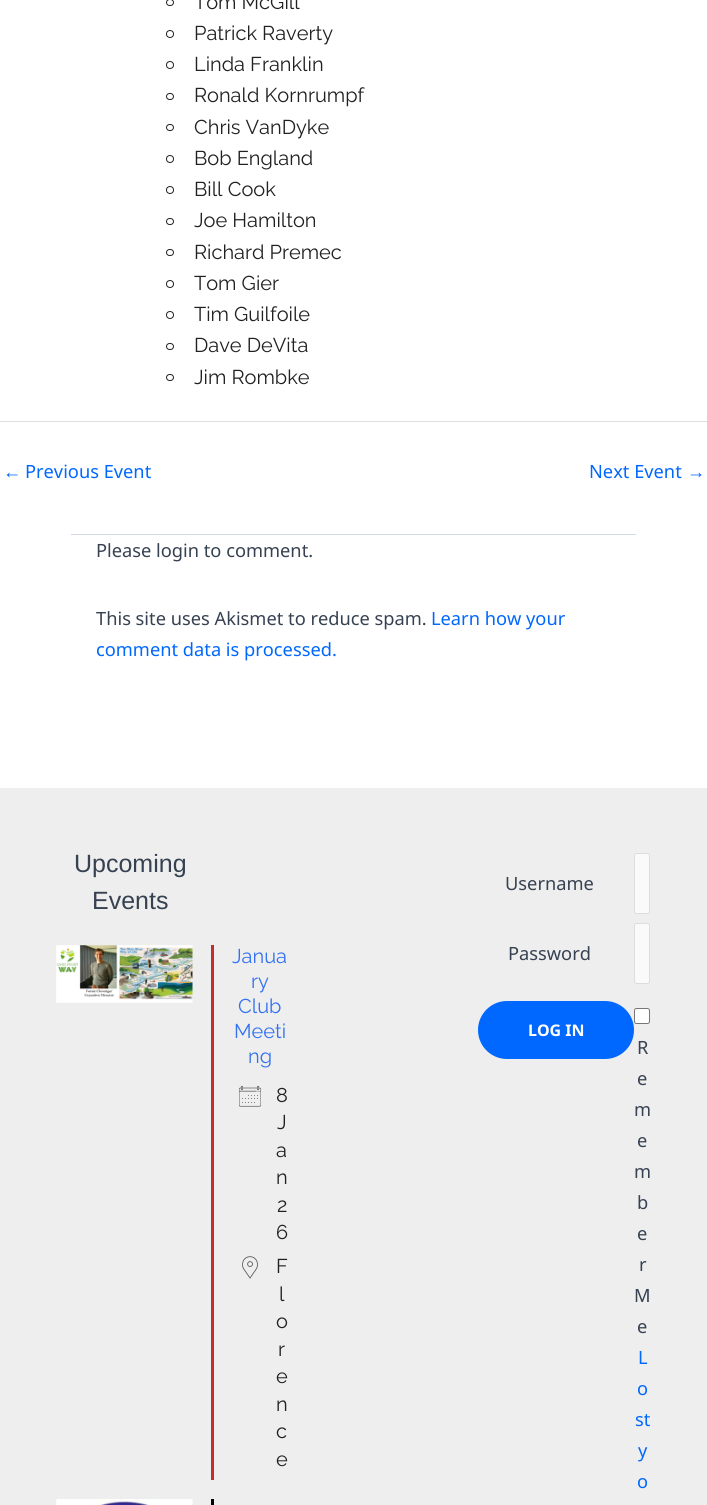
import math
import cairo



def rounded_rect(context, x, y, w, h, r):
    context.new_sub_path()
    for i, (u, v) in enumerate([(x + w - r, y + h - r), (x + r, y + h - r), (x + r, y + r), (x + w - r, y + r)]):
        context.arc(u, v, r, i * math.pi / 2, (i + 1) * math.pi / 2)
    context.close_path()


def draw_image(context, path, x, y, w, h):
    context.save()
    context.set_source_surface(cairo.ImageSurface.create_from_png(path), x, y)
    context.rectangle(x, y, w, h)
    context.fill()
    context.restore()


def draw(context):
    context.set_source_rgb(1, 1, 1)
    context.paint()
    rounded_rect(context, 166.5, -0.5, 7, 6, 3)
    context.set_source_rgb(33 / 255, 33 / 255, 33 / 255)
    context.set_line_width(1)
    context.stroke()
    context.arc(170, 34, 3.5, 0, 2 * math.pi)
    context.stroke()
    context.arc(170, 65, 3.5, 0, 2 * math.pi)
    context.stroke()
    rounded_rect(context, 166.5, 93.5, 7, 6, 3)
    context.stroke()
    rounded_rect(context, 166.5, 124.5, 7, 6, 3)
    context.stroke()
    context.arc(170, 159, 3.5, 0, 2 * math.pi)
    context.stroke()
    context.arc(170, 190, 3.5, 0, 2 * math.pi)
    context.stroke()
    rounded_rect(context, 166.5, 218.5, 7, 6, 3)
    context.stroke()
    rounded_rect(context, 166.5, 249.5, 7, 6, 3)
    context.stroke()
    context.arc(170, 284, 3.5, 0, 2 * math.pi)
    context.stroke()
    context.arc(170, 315, 3.5, 0, 2 * math.pi)
    context.stroke()
    rounded_rect(context, 166.5, 343.5, 7, 6, 3)
    context.stroke()
    rounded_rect(context, 166.5, 374.5, 7, 6, 3)
    context.stroke()
    context.set_source_rgb(221 / 255, 221 / 255, 221 / 255)
    context.rectangle(0, 421, 707, 1)
    context.fill()
    context.set_source_rgb(209 / 255, 218 / 255, 229 / 255)
    context.rectangle(71, 534, 565, 1)
    context.fill()
    context.set_source_rgb(238 / 255, 238 / 255, 238 / 255)
    context.rectangle(0, 788, 707, 717)
    context.fill()
    draw_image(context, "images/1.png", 56, 945, 137, 58)
    context.set_source_rgb(196 / 255, 45 / 255, 45 / 255)
    context.rectangle(211, 945, 3, 535)
    context.fill()
    draw_image(context, "images/2.png", 239, 1085, 22, 22)
    draw_image(context, "images/3.png", 242, 1256, 16, 23)
    draw_image(context, "images/4.png", 56, 1499, 137, 6)
    context.set_source_rgb(0, 0, 0)
    context.rectangle(211, 1499, 3, 6)
    context.fill()
    context.set_source_rgb(250 / 255, 250 / 255, 250 / 255)
    rounded_rect(context, 634.5, 853.5, 15, 60, 2)
    context.fill_preserve()
    context.set_source_rgb(221 / 255, 221 / 255, 221 / 255)
    context.stroke()
    context.set_source_rgb(250 / 255, 250 / 255, 250 / 255)
    rounded_rect(context, 634.5, 923.5, 15, 60, 2)
    context.fill_preserve()
    context.set_source_rgb(221 / 255, 221 / 255, 221 / 255)
    context.stroke()
    context.set_source_rgb(0, 103 / 255, 1)
    rounded_rect(context, 478, 1001, 156, 58, 29)
    context.fill()
    context.set_source_rgb(1, 1, 1)
    rounded_rect(context, 634.5, 1008.5, 15, 15, 2)
    context.fill_preserve()
    context.set_source_rgb(118 / 255, 118 / 255, 118 / 255)
    context.stroke()
    context.select_font_face("Raleway")
    context.set_font_size(20)
    context.set_source_rgb(33 / 255, 33 / 255, 33 / 255)
    context.move_to(194, 9)
    context.show_text("Tom McGill")
    context.move_to(194, 40)
    context.show_text("Patrick Raverty")
    context.move_to(194, 71)
    context.show_text("Linda Franklin")
    context.move_to(194, 102)
    context.show_text("Ronald Kornrumpf")
    context.move_to(194, 134)
    context.show_text("Chris VanDyke")
    context.move_to(194, 165)
    context.show_text("Bob England")
    context.move_to(194, 196)
    context.show_text("Bill Cook")
    context.move_to(194, 227)
    context.show_text("Joe Hamilton")
    context.move_to(194, 259)
    context.show_text("Richard Premec")
    context.move_to(194, 290)
    context.show_text("Tom Gier")
    context.move_to(194, 321)
    context.show_text("Tim Guilfoile")
    context.move_to(194, 352)
    context.show_text("Dave DeVita")
    context.move_to(194, 384)
    context.show_text("Jim Rombke")
    context.select_font_face("Liberation Sans")
    context.set_font_size(18.25)
    context.set_source_rgb(0, 103 / 255, 1)
    context.move_to(3, 478)
    context.show_text("←")
    context.select_font_face("Noto Sans")
    context.move_to(25, 478)
    context.show_text("Previous Event")
    context.move_to(589, 478)
    context.show_text("Next Event")
    context.select_font_face("Liberation Sans")
    context.move_to(687, 478)
    context.show_text("→")
    context.select_font_face("Noto Sans")
    context.set_source_rgb(54 / 255, 65 / 255, 81 / 255)
    context.move_to(96, 557)
    context.show_text("Please login to comment.")
    context.move_to(96, 625)
    context.show_text("This site uses Akismet to reduce spam.")
    context.set_source_rgb(0, 103 / 255, 1)
    context.move_to(431, 625)
    context.show_text("Learn how your")
    context.move_to(96, 656)
    context.show_text("comment data is processed.")
    context.select_font_face("Liberation Sans")
    context.set_font_size(25)
    context.set_source_rgb(54 / 255, 65 / 255, 81 / 255)
    context.move_to(74, 872)
    context.show_text("Upcoming")
    context.move_to(92, 909)
    context.show_text("Events")
    context.select_font_face("Raleway")
    context.set_font_size(20)
    context.set_source_rgb(51 / 255, 114 / 255, 240 / 255)
    context.move_to(232, 963)
    context.show_text("Janua")
    context.move_to(251, 988)
    context.show_text("ry")
    context.move_to(238, 1013)
    context.show_text("Club")
    context.move_to(234, 1038)
    context.show_text("Meeti")
    context.move_to(248, 1063)
    context.show_text("ng")
    context.set_source_rgb(33 / 255, 33 / 255, 33 / 255)
    context.move_to(276, 1102)
    context.show_text("8")
    context.move_to(277, 1129)
    context.show_text("J")
    context.move_to(276, 1157)
    context.show_text("a")
    context.move_to(276, 1184)
    context.show_text("n")
    context.move_to(277, 1212)
    context.show_text("2")
    context.move_to(276, 1239)
    context.show_text("6")
    context.move_to(276, 1273)
    context.show_text("F")
    context.move_to(279, 1301)
    context.show_text("l")
    context.move_to(276, 1328)
    context.show_text("o")
    context.move_to(278, 1356)
    context.show_text("r")
    context.move_to(276, 1383)
    context.show_text("e")
    context.move_to(276, 1411)
    context.show_text("n")
    context.move_to(276, 1438)
    context.show_text("c")
    context.move_to(276, 1466)
    context.show_text("e")
    context.select_font_face("Noto Sans")
    context.set_font_size(18.25)
    context.set_source_rgb(54 / 255, 65 / 255, 81 / 255)
    context.move_to(505, 890)
    context.show_text("Username")
    context.move_to(508, 960)
    context.show_text("Password")
    context.select_font_face("Noto Sans", cairo.FontSlant.NORMAL, cairo.FontWeight.BOLD)
    context.set_font_size(16)
    context.set_source_rgb(1, 1, 1)
    context.move_to(528, 1036)
    context.show_text("LOG IN")
    context.select_font_face("Noto Sans")
    context.set_font_size(18.25)
    context.set_source_rgb(54 / 255, 65 / 255, 81 / 255)
    context.move_to(637, 1054)
    context.show_text("R")
    context.move_to(637, 1085)
    context.show_text("e")
    context.move_to(634, 1116)
    context.show_text("m")
    context.move_to(637, 1147)
    context.show_text("e")
    context.move_to(634, 1178)
    context.show_text("m")
    context.move_to(637, 1209)
    context.show_text("b")
    context.move_to(637, 1240)
    context.show_text("e")
    context.move_to(639, 1271)
    context.show_text("r")
    context.move_to(634, 1302)
    context.show_text("M")
    context.move_to(637, 1333)
    context.show_text("e")
    context.set_source_rgb(0, 103 / 255, 1)
    context.move_to(638, 1364)
    context.show_text("L")
    context.move_to(637, 1395)
    context.show_text("o")
    context.move_to(635, 1426)
    context.show_text("st")
    context.move_to(638, 1457)
    context.show_text("y")
    context.move_to(637, 1488)
    context.show_text("o")


surface = cairo.ImageSurface(cairo.Format.RGB24, 707, 1505)
context = cairo.Context(surface)
options = cairo.FontOptions()
options.set_hint_metrics(cairo.HintMetrics.OFF)
options.set_hint_style(cairo.HintStyle.NONE)
context.set_font_options(options)
context.set_miter_limit(4)
draw(context)
surface.write_to_png("out.png")
